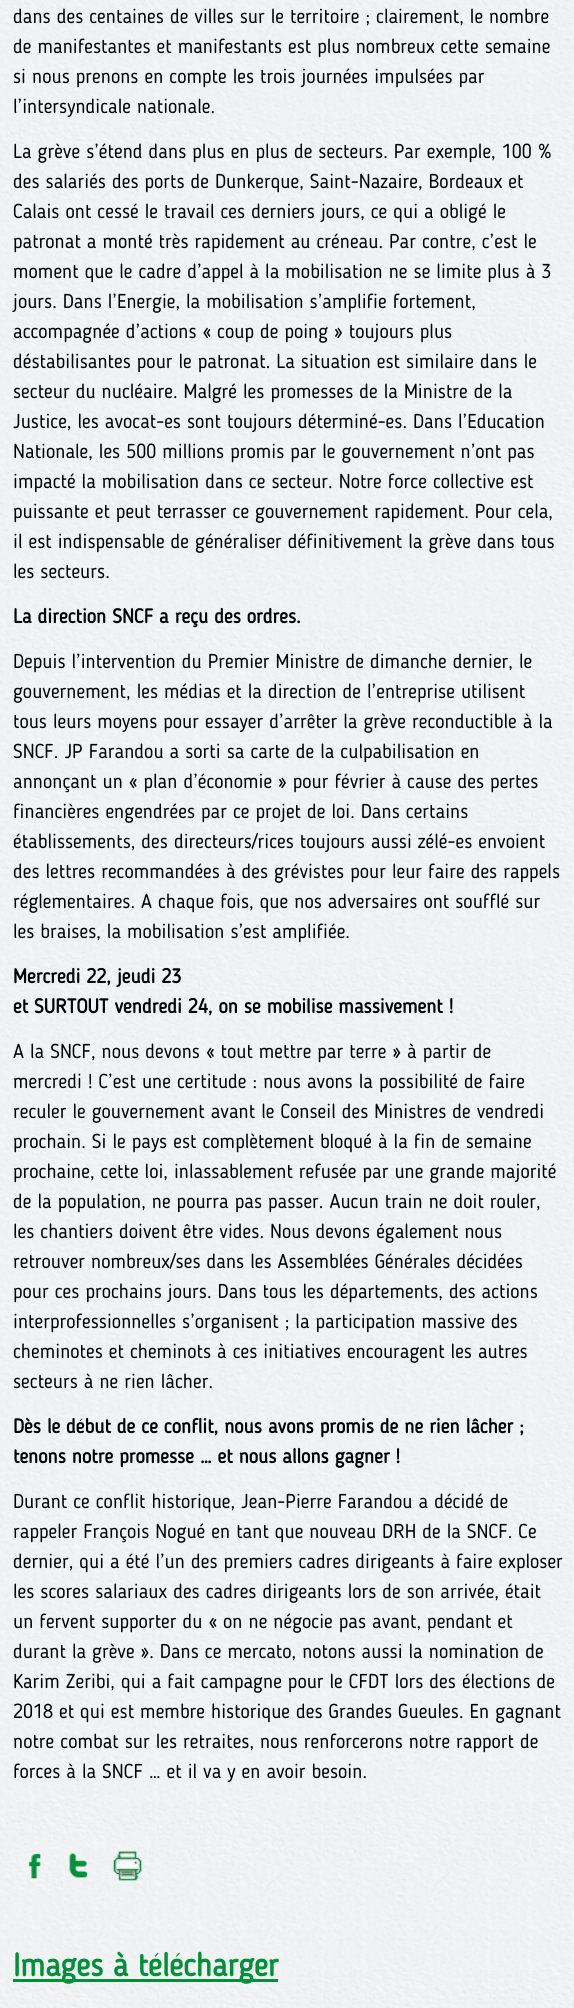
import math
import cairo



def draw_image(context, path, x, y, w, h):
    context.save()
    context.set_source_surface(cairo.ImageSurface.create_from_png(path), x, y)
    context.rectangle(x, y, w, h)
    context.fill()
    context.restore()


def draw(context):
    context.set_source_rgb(1, 1, 1)
    context.paint()
    draw_image(context, "images/1.png", 0, 0, 574, 2008)
    draw_image(context, "images/2.png", 12, 1836, 39, 55)
    draw_image(context, "images/3.png", 59, 1835, 40, 55)
    draw_image(context, "images/4.png", 105, 1832, 46, 63)
    context.set_source_rgb(0, 144 / 255, 56 / 255)
    context.rectangle(13, 1979, 265, 3)
    context.fill()
    context.select_font_face("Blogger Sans")
    context.set_font_size(20)
    context.set_source_rgb(0, 0, 0)
    context.move_to(13, 23)
    context.show_text("dans des centaines de villes sur le territoire ; clairement, le nombre")
    context.move_to(13, 53)
    context.show_text("de manifestantes et manifestants est plus nombreux cette semaine")
    context.move_to(13, 83)
    context.show_text("si nous prenons en compte les trois journées impulsées par")
    context.move_to(13, 113)
    context.show_text("l’intersyndicale nationale.")
    context.move_to(13, 158)
    context.show_text("La grève s’étend dans plus en plus de secteurs. Par exemple, 100 %")
    context.move_to(13, 188)
    context.show_text("des salariés des ports de Dunkerque, Saint-Nazaire, Bordeaux et")
    context.move_to(13, 218)
    context.show_text("Calais ont cessé le travail ces derniers jours, ce qui a obligé le")
    context.move_to(13, 248)
    context.show_text("patronat a monté très rapidement au créneau. Par contre, c’est le")
    context.move_to(13, 278)
    context.show_text("moment que le cadre d’appel à la mobilisation ne se limite plus à 3")
    context.move_to(13, 308)
    context.show_text("jours. Dans l’Energie, la mobilisation s’amplifie fortement,")
    context.move_to(13, 338)
    context.show_text("accompagnée d’actions « coup de poing » toujours plus")
    context.move_to(13, 368)
    context.show_text("déstabilisantes pour le patronat. La situation est similaire dans le")
    context.move_to(13, 398)
    context.show_text("secteur du nucléaire. Malgré les promesses de la Ministre de la")
    context.move_to(13, 428)
    context.show_text("Justice, les avocat-es sont toujours déterminé-es. Dans l’Education")
    context.move_to(13, 458)
    context.show_text("Nationale, les 500 millions promis par le gouvernement n’ont pas")
    context.move_to(13, 488)
    context.show_text("impacté la mobilisation dans ce secteur. Notre force collective est")
    context.move_to(13, 518)
    context.show_text("puissante et peut terrasser ce gouvernement rapidement. Pour cela,")
    context.move_to(13, 548)
    context.show_text("il est indispensable de généraliser définitivement la grève dans tous")
    context.move_to(13, 578)
    context.show_text("les secteurs.")
    context.select_font_face("Blogger Sans", cairo.FontSlant.NORMAL, cairo.FontWeight.BOLD)
    context.move_to(13, 623)
    context.show_text("La direction SNCF a reçu des ordres.")
    context.select_font_face("Blogger Sans")
    context.move_to(13, 668)
    context.show_text("Depuis l’intervention du Premier Ministre de dimanche dernier, le")
    context.move_to(13, 698)
    context.show_text("gouvernement, les médias et la direction de l’entreprise utilisent")
    context.move_to(13, 728)
    context.show_text("tous leurs moyens pour essayer d’arrêter la grève reconductible à la")
    context.move_to(13, 758)
    context.show_text("SNCF. JP Farandou a sorti sa carte de la culpabilisation en")
    context.move_to(13, 788)
    context.show_text("annonçant un « plan d’économie » pour février à cause des pertes")
    context.move_to(13, 818)
    context.show_text("financières engendrées par ce projet de loi. Dans certains")
    context.move_to(13, 848)
    context.show_text("établissements, des directeurs/rices toujours aussi zélé-es envoient")
    context.move_to(13, 878)
    context.show_text("des lettres recommandées à des grévistes pour leur faire des rappels")
    context.move_to(13, 908)
    context.show_text("réglementaires. A chaque fois, que nos adversaires ont soufflé sur")
    context.move_to(13, 938)
    context.show_text("les braises, la mobilisation s’est amplifiée.")
    context.select_font_face("Blogger Sans", cairo.FontSlant.NORMAL, cairo.FontWeight.BOLD)
    context.move_to(13, 983)
    context.show_text("Mercredi 22, jeudi 23")
    context.move_to(13, 1013)
    context.show_text("et SURTOUT vendredi 24, on se mobilise massivement !")
    context.select_font_face("Blogger Sans")
    context.move_to(13, 1058)
    context.show_text("A la SNCF, nous devons « tout mettre par terre » à partir de")
    context.move_to(13, 1088)
    context.show_text("mercredi ! C’est une certitude : nous avons la possibilité de faire")
    context.move_to(13, 1118)
    context.show_text("reculer le gouvernement avant le Conseil des Ministres de vendredi")
    context.move_to(13, 1148)
    context.show_text("prochain. Si le pays est complètement bloqué à la fin de semaine")
    context.move_to(13, 1178)
    context.show_text("prochaine, cette loi, inlassablement refusée par une grande majorité")
    context.move_to(13, 1208)
    context.show_text("de la population, ne pourra pas passer. Aucun train ne doit rouler,")
    context.move_to(13, 1238)
    context.show_text("les chantiers doivent être vides. Nous devons également nous")
    context.move_to(13, 1268)
    context.show_text("retrouver nombreux/ses dans les Assemblées Générales décidées")
    context.move_to(13, 1298)
    context.show_text("pour ces prochains jours. Dans tous les départements, des actions")
    context.move_to(13, 1328)
    context.show_text("interprofessionnelles s’organisent ; la participation massive des")
    context.move_to(13, 1358)
    context.show_text("cheminotes et cheminots à ces initiatives encouragent les autres")
    context.move_to(13, 1388)
    context.show_text("secteurs à ne rien lâcher.")
    context.select_font_face("Blogger Sans", cairo.FontSlant.NORMAL, cairo.FontWeight.BOLD)
    context.move_to(13, 1433)
    context.show_text("Dès le début de ce conflit, nous avons promis de ne rien lâcher ;")
    context.move_to(13, 1463)
    context.show_text("tenons notre promesse … et nous allons gagner !")
    context.select_font_face("Blogger Sans")
    context.move_to(13, 1508)
    context.show_text("Durant ce conflit historique, Jean-Pierre Farandou a décidé de")
    context.move_to(13, 1538)
    context.show_text("rappeler François Nogué en tant que nouveau DRH de la SNCF. Ce")
    context.move_to(13, 1568)
    context.show_text("dernier, qui a été l’un des premiers cadres dirigeants à faire exploser")
    context.move_to(13, 1598)
    context.show_text("les scores salariaux des cadres dirigeants lors de son arrivée, était")
    context.move_to(13, 1628)
    context.show_text("un fervent supporter du « on ne négocie pas avant, pendant et")
    context.move_to(13, 1658)
    context.show_text("durant la grève ». Dans ce mercato, notons aussi la nomination de")
    context.move_to(13, 1688)
    context.show_text("Karim Zeribi, qui a fait campagne pour le CFDT lors des élections de")
    context.move_to(13, 1718)
    context.show_text("2018 et qui est membre historique des Grandes Gueules. En gagnant")
    context.move_to(13, 1748)
    context.show_text("notre combat sur les retraites, nous renforcerons notre rapport de")
    context.move_to(13, 1778)
    context.show_text("forces à la SNCF … et il va y en avoir besoin.")
    context.select_font_face("Blogger Sans", cairo.FontSlant.NORMAL, cairo.FontWeight.BOLD)
    context.set_font_size(32)
    context.set_source_rgb(0, 144 / 255, 56 / 255)
    context.move_to(13, 1976)
    context.show_text("Images à télécharger")


surface = cairo.ImageSurface(cairo.Format.RGB24, 574, 2008)
context = cairo.Context(surface)
options = cairo.FontOptions()
options.set_hint_metrics(cairo.HintMetrics.OFF)
options.set_hint_style(cairo.HintStyle.NONE)
context.set_font_options(options)
context.set_miter_limit(4)
draw(context)
surface.write_to_png("out.png")
